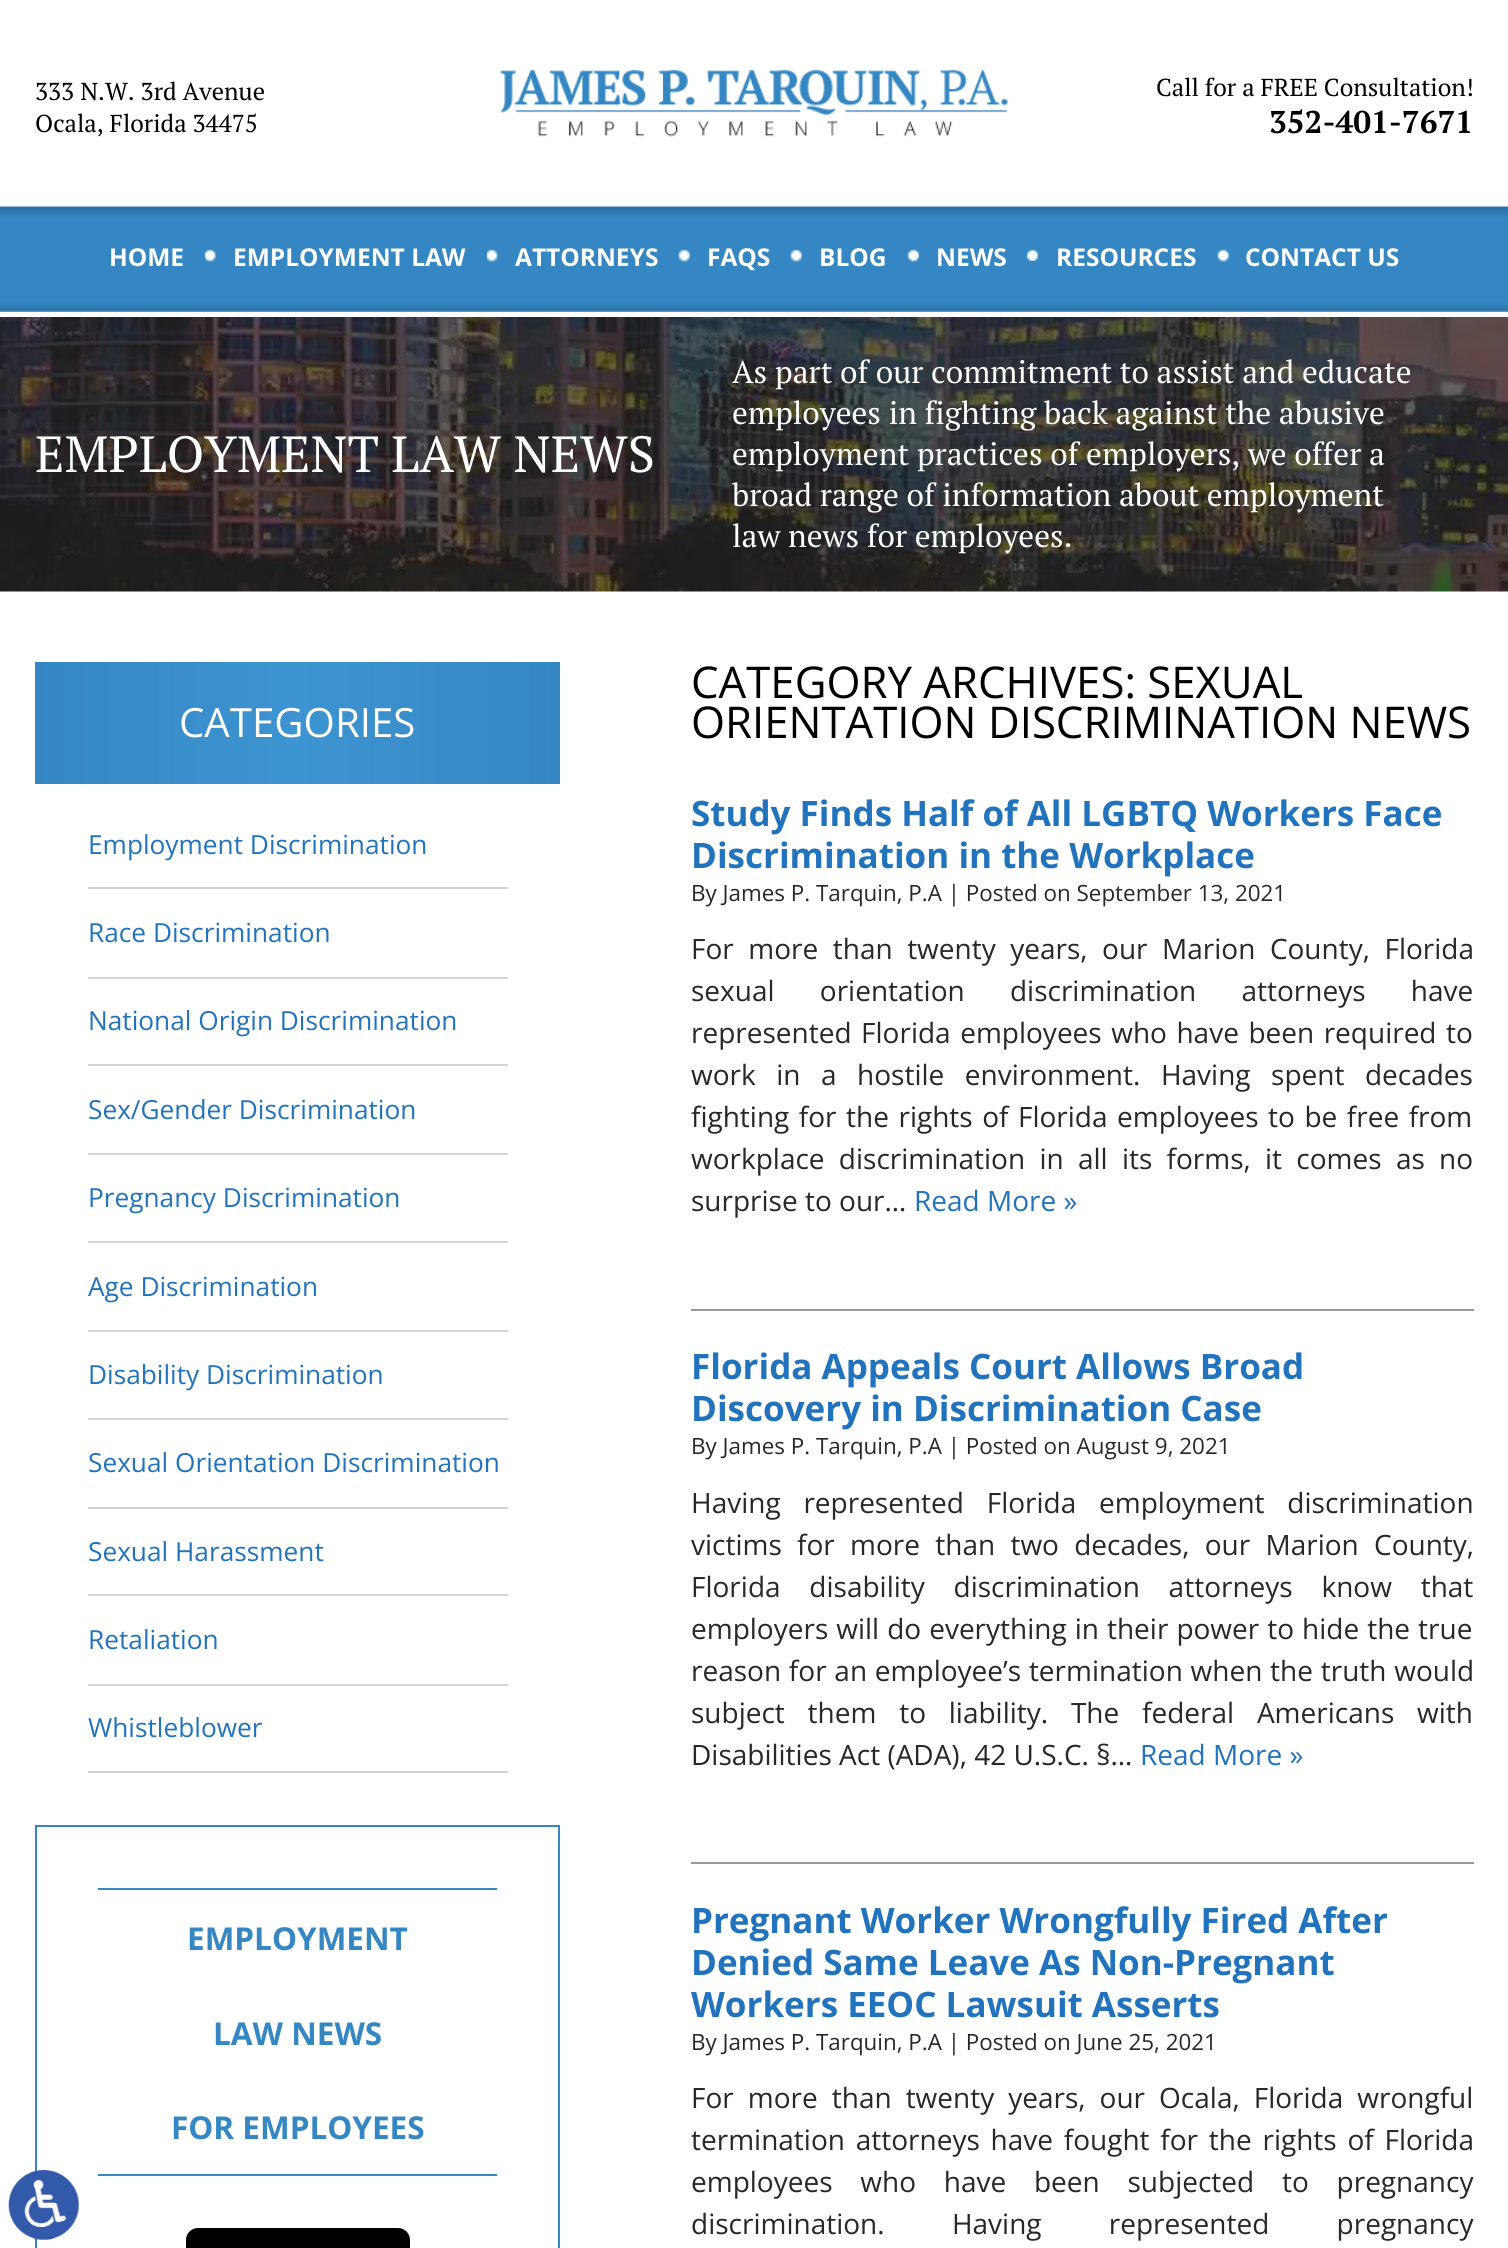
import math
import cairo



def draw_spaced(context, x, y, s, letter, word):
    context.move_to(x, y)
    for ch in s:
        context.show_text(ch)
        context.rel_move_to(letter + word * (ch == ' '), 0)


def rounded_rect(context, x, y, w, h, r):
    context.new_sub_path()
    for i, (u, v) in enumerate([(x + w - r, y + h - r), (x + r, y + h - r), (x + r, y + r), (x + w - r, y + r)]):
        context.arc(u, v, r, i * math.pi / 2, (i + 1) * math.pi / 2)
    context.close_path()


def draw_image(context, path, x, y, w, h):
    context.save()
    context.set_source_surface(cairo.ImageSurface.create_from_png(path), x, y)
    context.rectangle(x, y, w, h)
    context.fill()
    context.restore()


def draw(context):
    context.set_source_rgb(1, 1, 1)
    context.paint()
    draw_image(context, "images/1.png", 500, 70, 508, 67)
    draw_image(context, "images/2.png", 0, 205, 1508, 107)
    draw_image(context, "images/3.png", 205, 249, 11, 13)
    draw_image(context, "images/4.png", 487, 249, 11, 13)
    draw_image(context, "images/5.png", 678, 249, 12, 13)
    draw_image(context, "images/6.png", 790, 249, 12, 13)
    draw_image(context, "images/7.png", 907, 249, 12, 13)
    draw_image(context, "images/8.png", 1027, 249, 12, 12)
    draw_image(context, "images/6.png", 1217, 249, 12, 13)
    draw_image(context, "images/9.png", 0, 317, 1508, 275)
    gradient = cairo.LinearGradient(35, 723, 560, 723)
    gradient.add_color_stop_rgba(0, 52 / 255, 135 / 255, 194 / 255, 1)
    gradient.add_color_stop_rgba(0.5, 61 / 255, 148 / 255, 210 / 255, 1)
    gradient.add_color_stop_rgba(1, 52 / 255, 135 / 255, 194 / 255, 1)
    context.set_source(gradient)
    context.rectangle(35, 662, 525, 122)
    context.fill()
    context.set_source_rgb(210 / 255, 213 / 255, 216 / 255)
    context.rectangle(88, 887, 420, 2)
    context.fill()
    context.rectangle(88, 977, 420, 2)
    context.fill()
    context.rectangle(88, 1064, 420, 2)
    context.fill()
    context.rectangle(88, 1153, 420, 2)
    context.fill()
    context.rectangle(88, 1241, 420, 2)
    context.fill()
    context.rectangle(88, 1330, 420, 2)
    context.fill()
    context.rectangle(88, 1418, 420, 2)
    context.fill()
    context.rectangle(88, 1507, 420, 2)
    context.fill()
    context.rectangle(88, 1594, 420, 2)
    context.fill()
    context.rectangle(88, 1684, 420, 2)
    context.fill()
    context.rectangle(88, 1771, 420, 2)
    context.fill()
    context.rectangle(36, 1826, 523, 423)
    context.set_source_rgb(52 / 255, 135 / 255, 194 / 255)
    context.stroke()
    context.rectangle(98, 1888, 399, 2)
    context.fill()
    context.rectangle(98, 2174, 399, 2)
    context.fill()
    context.set_source_rgb(0, 0, 0)
    rounded_rect(context, 186, 2228, 224, 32, 12)
    context.fill()
    context.set_source_rgb(153 / 255, 153 / 255, 153 / 255)
    context.rectangle(691, 1309, 783, 2)
    context.fill()
    context.rectangle(691, 1862, 783, 2)
    context.fill()
    draw_image(context, "images/10.png", 8, 2170, 71, 70)
    context.select_font_face("PT Serif")
    context.set_font_size(24.5)
    context.set_source_rgb(0, 0, 0)
    context.move_to(35, 100)
    context.show_text("333 N.W. 3rd Avenue")
    context.move_to(35, 132)
    context.show_text("Ocala, Florida 34475")
    context.move_to(1156, 96)
    context.show_text("Call for a FREE Consultation!")
    context.select_font_face("PT Serif", cairo.FontSlant.NORMAL, cairo.FontWeight.BOLD)
    context.set_font_size(31.5)
    context.move_to(1269, 133)
    context.show_text("352-401-7671")
    context.select_font_face("Open Sans", cairo.FontSlant.NORMAL, cairo.FontWeight.BOLD)
    context.set_font_size(24.5)
    context.set_source_rgb(1, 1, 1)
    context.move_to(109, 266)
    context.show_text("HOME")
    context.move_to(233, 266)
    context.show_text("EMPLOYMENT LAW")
    context.move_to(515, 266)
    context.show_text("ATTORNEYS")
    context.move_to(707, 266)
    context.show_text("FAQS")
    context.move_to(819, 266)
    context.show_text("BLOG")
    context.move_to(936, 266)
    context.show_text("NEWS")
    context.move_to(1056, 266)
    context.show_text("RESOURCES")
    context.move_to(1245, 266)
    context.show_text("CONTACT US")
    context.select_font_face("PT Serif")
    context.set_font_size(50.75)
    context.move_to(35, 472)
    context.show_text("EMPLOYMENT LAW NEWS")
    context.set_font_size(31.5)
    context.move_to(732, 383)
    context.show_text("As part of our commitment to assist and educate")
    context.move_to(732, 424)
    context.show_text("employees in fighting back against the abusive")
    context.move_to(732, 465)
    context.show_text("employment practices of employers, we offer a")
    context.move_to(732, 506)
    context.show_text("broad range of information about employment")
    context.move_to(732, 547)
    context.show_text("law news for employees.")
    context.select_font_face("Open Sans")
    context.set_font_size(40.25)
    context.move_to(179, 737)
    context.show_text("CATEGORIES")
    context.set_font_size(26.25)
    context.set_source_rgb(34 / 255, 115 / 255, 190 / 255)
    context.move_to(88, 854)
    context.show_text("Employment Discrimination")
    context.move_to(88, 942)
    context.show_text("Race Discrimination")
    context.move_to(88, 1030)
    context.show_text("National Origin Discrimination")
    context.move_to(88, 1119)
    context.show_text("Sex/Gender Discrimination")
    context.move_to(88, 1207)
    context.show_text("Pregnancy Discrimination")
    context.move_to(88, 1296)
    context.show_text("Age Discrimination")
    context.move_to(88, 1384)
    context.show_text("Disability Discrimination")
    context.move_to(88, 1472)
    context.show_text("Sexual Orientation Discrimination")
    context.move_to(88, 1561)
    context.show_text("Sexual Harassment")
    context.move_to(88, 1649)
    context.show_text("Retaliation")
    context.move_to(88, 1737)
    context.show_text("Whistleblower")
    context.select_font_face("Open Sans", cairo.FontSlant.NORMAL, cairo.FontWeight.BOLD)
    context.set_font_size(31.5)
    context.set_source_rgb(52 / 255, 135 / 255, 194 / 255)
    context.move_to(187, 1950)
    context.show_text("EMPLOYMENT")
    context.move_to(213, 2045)
    context.show_text("LAW NEWS")
    context.move_to(171, 2139)
    context.show_text("FOR EMPLOYEES")
    context.select_font_face("Open Sans")
    context.set_font_size(43.75)
    context.set_source_rgb(0, 0, 0)
    context.move_to(691, 698)
    context.show_text("CATEGORY ARCHIVES: SEXUAL")
    context.move_to(691, 738)
    context.show_text("ORIENTATION DISCRIMINATION NEWS")
    context.select_font_face("Open Sans", cairo.FontSlant.NORMAL, cairo.FontWeight.BOLD)
    context.set_font_size(35)
    context.set_source_rgb(34 / 255, 115 / 255, 190 / 255)
    context.move_to(691, 826)
    context.show_text("Study Finds Half of All LGBTQ Workers Face")
    context.move_to(691, 868)
    context.show_text("Discrimination in the Workplace")
    context.select_font_face("Open Sans")
    context.set_font_size(22.4)
    context.set_source_rgb(40 / 255, 40 / 255, 40 / 255)
    context.move_to(691, 901)
    context.show_text("By James P. Tarquin, P.A | Posted on September 13, 2021")
    context.set_font_size(28)
    draw_spaced(context, 691, 959, "For more than twenty years, our Marion County, Florida", 0, 7.25)
    draw_spaced(context, 691, 1001, "sexual orientation discrimination attorneys have", 0, 38)
    draw_spaced(context, 691, 1043, "represented Florida employees who have been required to", 0, 2.25)
    draw_spaced(context, 691, 1085, "work in a hostile environment. Having spent decades", 0, 13.25)
    draw_spaced(context, 691, 1127, "fighting for the rights of Florida employees to be free from", 0, 2.25)
    draw_spaced(context, 691, 1169, "workplace discrimination in all its forms, it comes as no", 0, 7)
    context.move_to(691, 1211)
    context.show_text("surprise to our…")
    context.set_source_rgb(34 / 255, 115 / 255, 190 / 255)
    context.move_to(914, 1211)
    context.show_text("Read More »")
    context.select_font_face("Open Sans", cairo.FontSlant.NORMAL, cairo.FontWeight.BOLD)
    context.set_font_size(35)
    context.move_to(691, 1379)
    context.show_text("Florida Appeals Court Allows Broad")
    context.move_to(691, 1421)
    context.show_text("Discovery in Discrimination Case")
    context.select_font_face("Open Sans")
    context.set_font_size(22.4)
    context.set_source_rgb(40 / 255, 40 / 255, 40 / 255)
    context.move_to(691, 1454)
    context.show_text("By James P. Tarquin, P.A | Posted on August 9, 2021")
    context.set_font_size(28)
    draw_spaced(context, 691, 1513, "Having represented Florida employment discrimination", 0, 15.5)
    draw_spaced(context, 691, 1555, "victims for more than two decades, our Marion County,", 0, 8)
    draw_spaced(context, 691, 1597, "Florida disability discrimination attorneys know that", 0, 21.5)
    draw_spaced(context, 691, 1639, "employers will do everything in their power to hide the true", 0, 0.75)
    draw_spaced(context, 691, 1681, "reason for an employee’s termination when the truth would", 0, 0.5)
    draw_spaced(context, 691, 1723, "subject them to liability. The federal Americans with", 0, 15.5)
    context.move_to(691, 1765)
    context.show_text("Disabilities Act (ADA), 42 U.S.C. §…")
    context.set_source_rgb(34 / 255, 115 / 255, 190 / 255)
    context.move_to(1140, 1765)
    context.show_text("Read More »")
    context.select_font_face("Open Sans", cairo.FontSlant.NORMAL, cairo.FontWeight.BOLD)
    context.set_font_size(35)
    context.move_to(691, 1933)
    context.show_text("Pregnant Worker Wrongfully Fired After")
    context.move_to(691, 1975)
    context.show_text("Denied Same Leave As Non-Pregnant")
    context.move_to(691, 2017)
    context.show_text("Workers EEOC Lawsuit Asserts")
    context.select_font_face("Open Sans")
    context.set_font_size(22.4)
    context.set_source_rgb(40 / 255, 40 / 255, 40 / 255)
    context.move_to(691, 2050)
    context.show_text("By James P. Tarquin, P.A | Posted on June 25, 2021")
    context.set_font_size(28)
    draw_spaced(context, 691, 2108, "For more than twenty years, our Ocala, Florida wrongful", 0, 6.75)
    draw_spaced(context, 691, 2150, "termination attorneys have fought for the rights of Florida", 0, 3.5)
    draw_spaced(context, 691, 2192, "employees who have been subjected to pregnancy", 0, 20.5)
    draw_spaced(context, 691, 2234, "discrimination. Having represented pregnancy", 0, 60)


surface = cairo.ImageSurface(cairo.Format.RGB24, 1508, 2248)
context = cairo.Context(surface)
options = cairo.FontOptions()
options.set_hint_metrics(cairo.HintMetrics.OFF)
options.set_hint_style(cairo.HintStyle.NONE)
context.set_font_options(options)
context.set_miter_limit(4)
draw(context)
surface.write_to_png("out.png")
